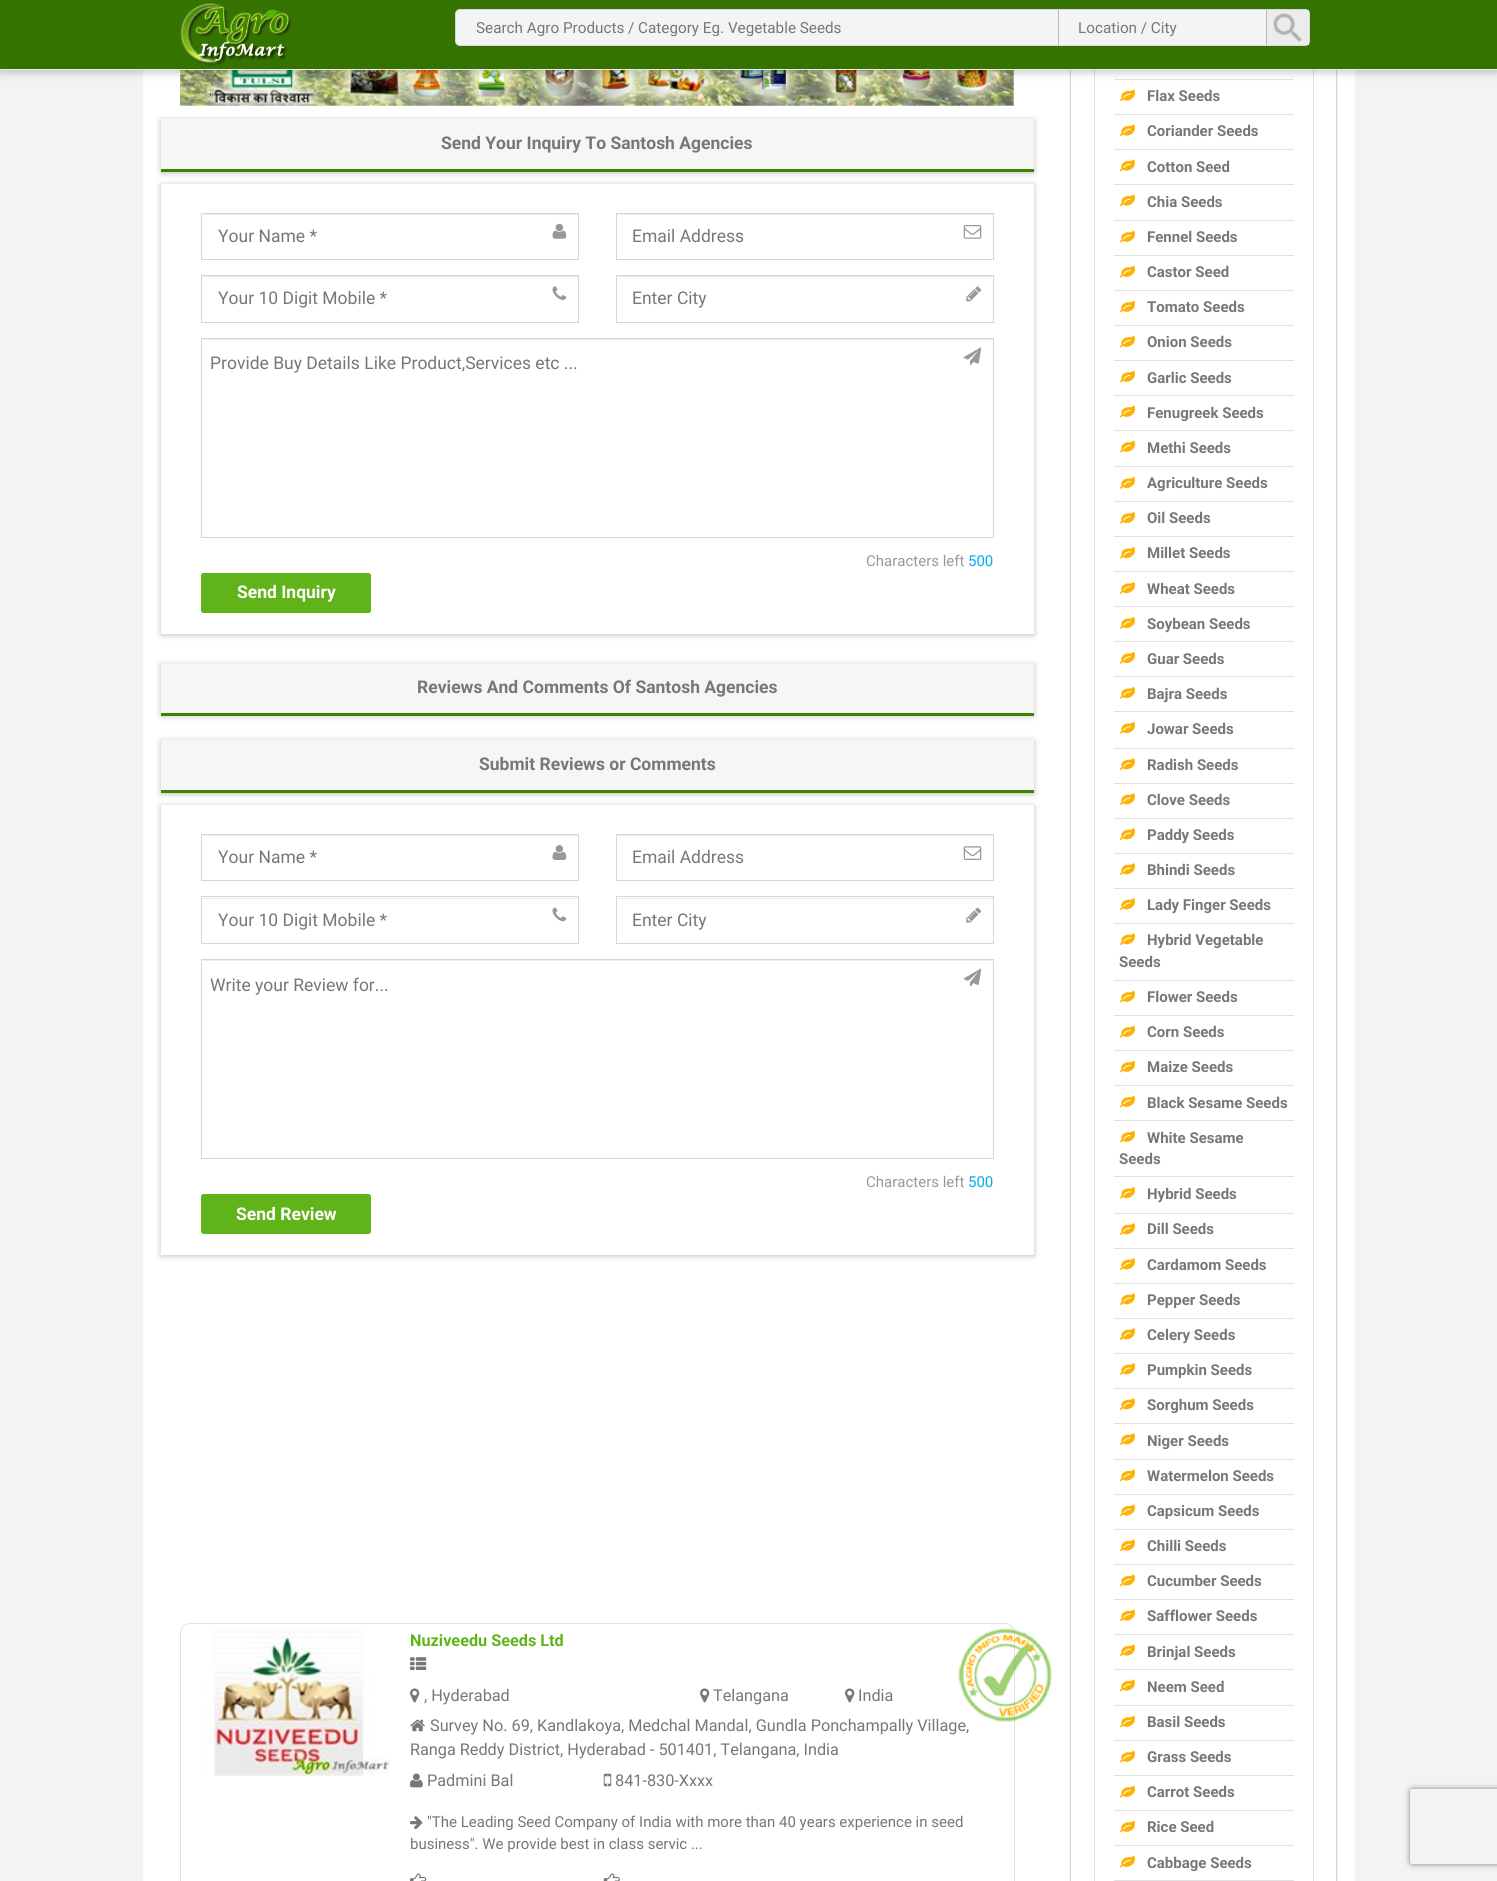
import math
import cairo



def rounded_rect(context, x, y, w, h, r):
    context.new_sub_path()
    for i, (u, v) in enumerate([(x + w - r, y + h - r), (x + r, y + h - r), (x + r, y + r), (x + w - r, y + r)]):
        context.arc(u, v, r, i * math.pi / 2, (i + 1) * math.pi / 2)
    context.close_path()


def draw_shadow(context, x, y, w, h, r, blur, alpha):
    context.push_group_with_content(cairo.Content.ALPHA)
    context.set_operator(cairo.Operator.SOURCE)
    for i in range(15, -16, -2):
        e = blur * i / 6
        if min(w, h) + 2 * e > 0:
            context.set_source_rgba(0, 0, 0, alpha * math.erfc((i - 1) / 8.5) / 2)
            rounded_rect(context, x - e, y - e, w + 2 * e, h + 2 * e, max(0, min(r + e + blur * .6, min(w, h) / 2 + e)))
            context.fill()
    context.mask(context.pop_group())


def draw_image(context, path, x, y, w, h):
    context.save()
    context.set_source_surface(cairo.ImageSurface.create_from_png(path), x, y)
    context.rectangle(x, y, w, h)
    context.fill()
    context.restore()


def draw(context):
    context.set_source_rgb(243 / 255, 243 / 255, 243 / 255)
    context.paint()
    context.set_source_rgb(1, 1, 1)
    context.rectangle(143, 70, 1212, 1811)
    context.fill()
    draw_image(context, "images/3.png", 180, 70, 834, 36)
    context.set_source_rgb(0, 0, 0)
    draw_shadow(context, 1071, -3, 265, 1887, 0, 1, 0.5)
    context.set_source_rgb(1, 1, 1)
    context.rectangle(1071, 70, 265, 1811)
    context.fill()
    context.rectangle(1094.5, -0.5, 219, 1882)
    context.set_source_rgb(226 / 255, 226 / 255, 226 / 255)
    context.set_line_width(1)
    context.stroke()
    context.rectangle(1114, 79, 180, 1)
    context.fill()
    context.set_source_rgb(0, 0, 0)
    draw_shadow(context, 0, 3, 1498, 70, 0, 4, 0.2)
    context.set_source_rgb(236 / 255, 236 / 255, 236 / 255)
    context.rectangle(0, 69, 1497, 1)
    context.fill()
    context.set_source_rgb(53 / 255, 115 / 255, 0)
    context.rectangle(0, 0, 1497, 69)
    context.fill()
    draw_image(context, "images/1.png", 180, 3, 112, 63)
    context.set_source_rgb(243 / 255, 244 / 255, 245 / 255)
    rounded_rect(context, 455.5, 9.5, 854, 36, 4.5)
    context.fill_preserve()
    context.set_source_rgb(216 / 255, 216 / 255, 216 / 255)
    context.stroke()
    context.set_source_rgb(189 / 255, 183 / 255, 183 / 255)
    context.rectangle(1058, 10, 1, 35)
    context.fill()
    context.set_source_rgb(236 / 255, 236 / 255, 236 / 255)
    context.rectangle(1267, 10, 42, 35)
    context.fill()
    draw_image(context, "images/2.png", 1273, 13, 29, 29)
    context.set_source_rgb(189 / 255, 183 / 255, 183 / 255)
    context.rectangle(1266, 10, 1, 35)
    context.fill()
    context.set_source_rgb(0, 0, 0)
    draw_shadow(context, 161, 120, 873, 53, 0, 3, 0.25)
    context.set_source_rgb(246 / 255, 246 / 255, 246 / 255)
    context.rectangle(161, 119, 873, 50)
    context.fill()
    context.set_source_rgb(64 / 255, 129 / 255, 0)
    context.rectangle(161, 169, 873, 3)
    context.fill()
    context.save()
    context.set_fill_rule(cairo.FillRule.EVEN_ODD)
    context.new_path()
    context.move_to(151, 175)
    context.line_to(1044, 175)
    context.line_to(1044, 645)
    context.line_to(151, 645)
    context.close_path()
    context.move_to(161, 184)
    context.line_to(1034, 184)
    context.line_to(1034, 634)
    context.line_to(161, 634)
    context.close_path()
    context.clip()
    context.set_source_rgb(0, 0, 0)
    draw_shadow(context, 161, 185, 873, 450, 0, 3, 0.25)
    context.restore()
    context.set_source_rgb(236 / 255, 236 / 255, 236 / 255)
    context.rectangle(203, 214, 375, 1)
    context.fill()
    context.rectangle(201.5, 213.5, 377, 46)
    context.set_source_rgb(209 / 255, 215 / 255, 218 / 255)
    context.stroke()
    draw_image(context, "images/4.png", 552, 223, 15, 16)
    context.set_source_rgb(236 / 255, 236 / 255, 236 / 255)
    context.rectangle(618, 214, 375, 1)
    context.fill()
    context.rectangle(616.5, 213.5, 377, 46)
    context.set_source_rgb(209 / 255, 215 / 255, 218 / 255)
    context.stroke()
    draw_image(context, "images/5.png", 963, 225, 19, 14)
    context.set_source_rgb(236 / 255, 236 / 255, 236 / 255)
    context.rectangle(203, 276, 375, 1)
    context.fill()
    context.rectangle(201.5, 275.5, 377, 47)
    context.set_source_rgb(209 / 255, 215 / 255, 218 / 255)
    context.stroke()
    draw_image(context, "images/6.png", 552, 286, 15, 14)
    context.set_source_rgb(236 / 255, 236 / 255, 236 / 255)
    context.rectangle(618, 276, 375, 1)
    context.fill()
    context.rectangle(616.5, 275.5, 377, 47)
    context.set_source_rgb(209 / 255, 215 / 255, 218 / 255)
    context.stroke()
    draw_image(context, "images/7.png", 966, 286, 15, 16)
    context.set_source_rgb(236 / 255, 236 / 255, 236 / 255)
    context.rectangle(203, 339, 790, 1)
    context.fill()
    context.rectangle(201.5, 338.5, 792, 199)
    context.set_source_rgb(209 / 255, 215 / 255, 218 / 255)
    context.stroke()
    draw_image(context, "images/8.png", 963, 347, 19, 18)
    context.set_source_rgb(96 / 255, 179 / 255, 25 / 255)
    rounded_rect(context, 201, 573, 170, 40, 2.5)
    context.fill()
    context.set_source_rgb(0, 0, 0)
    draw_shadow(context, 161, 665, 873, 51, 0, 3, 0.25)
    context.set_source_rgb(246 / 255, 246 / 255, 246 / 255)
    context.rectangle(161, 664, 873, 49)
    context.fill()
    context.set_source_rgb(64 / 255, 129 / 255, 0)
    context.rectangle(161, 713, 873, 3)
    context.fill()
    context.set_source_rgb(0, 0, 0)
    draw_shadow(context, 161, 741, 873, 53, 0, 3, 0.25)
    context.set_source_rgb(246 / 255, 246 / 255, 246 / 255)
    context.rectangle(161, 740, 873, 50)
    context.fill()
    context.set_source_rgb(64 / 255, 129 / 255, 0)
    context.rectangle(161, 790, 873, 3)
    context.fill()
    context.save()
    context.set_fill_rule(cairo.FillRule.EVEN_ODD)
    context.new_path()
    context.move_to(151, 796)
    context.line_to(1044, 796)
    context.line_to(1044, 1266)
    context.line_to(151, 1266)
    context.close_path()
    context.move_to(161, 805)
    context.line_to(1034, 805)
    context.line_to(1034, 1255)
    context.line_to(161, 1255)
    context.close_path()
    context.clip()
    context.set_source_rgb(0, 0, 0)
    draw_shadow(context, 161, 806, 873, 450, 0, 3, 0.25)
    context.restore()
    context.set_source_rgb(236 / 255, 236 / 255, 236 / 255)
    context.rectangle(203, 835, 375, 1)
    context.fill()
    context.rectangle(201.5, 834.5, 377, 46)
    context.set_source_rgb(209 / 255, 215 / 255, 218 / 255)
    context.stroke()
    draw_image(context, "images/9.png", 552, 845, 15, 15)
    context.set_source_rgb(236 / 255, 236 / 255, 236 / 255)
    context.rectangle(618, 835, 375, 1)
    context.fill()
    context.rectangle(616.5, 834.5, 377, 46)
    context.set_source_rgb(209 / 255, 215 / 255, 218 / 255)
    context.stroke()
    draw_image(context, "images/10.png", 963, 846, 19, 14)
    context.set_source_rgb(236 / 255, 236 / 255, 236 / 255)
    context.rectangle(203, 898, 375, 1)
    context.fill()
    context.rectangle(201.5, 896.5, 377, 47)
    context.set_source_rgb(209 / 255, 215 / 255, 218 / 255)
    context.stroke()
    draw_image(context, "images/11.png", 552, 907, 15, 15)
    context.set_source_rgb(236 / 255, 236 / 255, 236 / 255)
    context.rectangle(618, 898, 375, 1)
    context.fill()
    context.rectangle(616.5, 896.5, 377, 47)
    context.set_source_rgb(209 / 255, 215 / 255, 218 / 255)
    context.stroke()
    draw_image(context, "images/12.png", 966, 907, 15, 16)
    context.set_source_rgb(236 / 255, 236 / 255, 236 / 255)
    context.rectangle(203, 960, 790, 1)
    context.fill()
    context.rectangle(201.5, 959.5, 792, 199)
    context.set_source_rgb(209 / 255, 215 / 255, 218 / 255)
    context.stroke()
    draw_image(context, "images/13.png", 963, 968, 19, 19)
    context.set_source_rgb(96 / 255, 179 / 255, 25 / 255)
    rounded_rect(context, 201, 1194, 170, 40, 2.5)
    context.fill()
    rounded_rect(context, 180.5, 1623.5, 834, 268, 9.5)
    context.set_source_rgb(226 / 255, 226 / 255, 226 / 255)
    context.stroke()
    draw_image(context, "images/14.png", 206, 1629, 185, 147)
    draw_image(context, "images/15.png", 410, 1657, 17, 13)
    draw_image(context, "images/16.png", 410, 1688, 10, 15)
    draw_image(context, "images/16.png", 700, 1688, 10, 15)
    draw_image(context, "images/16.png", 845, 1688, 10, 15)
    draw_image(context, "images/18.png", 410, 1719, 15, 13)
    draw_image(context, "images/19.png", 410, 1773, 13, 15)
    draw_image(context, "images/20.png", 603, 1773, 9, 14)
    draw_image(context, "images/21.png", 410, 1816, 13, 14)
    draw_image(context, "images/22.png", 410, 1873, 17, 8)
    draw_image(context, "images/23.png", 603, 1873, 17, 8)
    context.rectangle(1114, 114, 180, 1)
    context.fill()
    draw_image(context, "images/24.png", 1120, 89, 15, 13)
    context.rectangle(1114, 149, 180, 1)
    context.fill()
    draw_image(context, "images/24.png", 1120, 124, 15, 13)
    context.rectangle(1114, 184, 180, 1)
    context.fill()
    draw_image(context, "images/24.png", 1120, 159, 15, 13)
    context.rectangle(1114, 220, 180, 1)
    context.fill()
    draw_image(context, "images/24.png", 1120, 194, 15, 13)
    context.rectangle(1114, 255, 180, 1)
    context.fill()
    draw_image(context, "images/25.png", 1120, 230, 15, 13)
    context.rectangle(1114, 290, 180, 1)
    context.fill()
    draw_image(context, "images/25.png", 1120, 265, 15, 13)
    context.rectangle(1114, 325, 180, 1)
    context.fill()
    draw_image(context, "images/25.png", 1120, 300, 15, 13)
    context.rectangle(1114, 360, 180, 1)
    context.fill()
    draw_image(context, "images/25.png", 1120, 335, 15, 13)
    context.rectangle(1114, 395, 180, 1)
    context.fill()
    draw_image(context, "images/25.png", 1120, 370, 15, 13)
    context.rectangle(1114, 430, 180, 1)
    context.fill()
    draw_image(context, "images/25.png", 1120, 405, 15, 13)
    context.rectangle(1114, 466, 180, 1)
    context.fill()
    draw_image(context, "images/25.png", 1120, 440, 15, 13)
    context.rectangle(1114, 501, 180, 1)
    context.fill()
    draw_image(context, "images/26.png", 1120, 477, 15, 12)
    context.rectangle(1114, 536, 180, 1)
    context.fill()
    draw_image(context, "images/26.png", 1120, 512, 15, 12)
    context.rectangle(1114, 571, 180, 1)
    context.fill()
    draw_image(context, "images/26.png", 1120, 547, 15, 12)
    context.rectangle(1114, 606, 180, 1)
    context.fill()
    draw_image(context, "images/26.png", 1120, 582, 15, 12)
    context.rectangle(1114, 641, 180, 1)
    context.fill()
    draw_image(context, "images/26.png", 1120, 617, 15, 12)
    context.rectangle(1114, 676, 180, 1)
    context.fill()
    draw_image(context, "images/26.png", 1120, 652, 15, 12)
    context.rectangle(1114, 711, 180, 1)
    context.fill()
    draw_image(context, "images/26.png", 1120, 687, 15, 12)
    context.rectangle(1114, 748, 180, 1)
    context.fill()
    draw_image(context, "images/26.png", 1120, 722, 15, 12)
    context.rectangle(1114, 783, 180, 1)
    context.fill()
    draw_image(context, "images/27.png", 1120, 758, 15, 12)
    context.rectangle(1114, 818, 180, 1)
    context.fill()
    draw_image(context, "images/27.png", 1120, 793, 15, 12)
    context.rectangle(1114, 853, 180, 1)
    context.fill()
    draw_image(context, "images/27.png", 1120, 828, 15, 12)
    context.rectangle(1114, 888, 180, 1)
    context.fill()
    draw_image(context, "images/27.png", 1120, 863, 15, 12)
    context.rectangle(1114, 923, 180, 1)
    context.fill()
    draw_image(context, "images/27.png", 1120, 898, 15, 12)
    context.rectangle(1114, 980, 180, 1)
    context.fill()
    draw_image(context, "images/27.png", 1120, 933, 15, 12)
    context.rectangle(1114, 1015, 180, 1)
    context.fill()
    draw_image(context, "images/25.png", 1120, 990, 15, 13)
    context.rectangle(1114, 1050, 180, 1)
    context.fill()
    draw_image(context, "images/25.png", 1120, 1025, 15, 13)
    context.rectangle(1114, 1085, 180, 1)
    context.fill()
    draw_image(context, "images/25.png", 1120, 1060, 15, 13)
    context.rectangle(1114, 1120, 180, 1)
    context.fill()
    draw_image(context, "images/25.png", 1120, 1095, 15, 13)
    context.rectangle(1114, 1176, 180, 1)
    context.fill()
    draw_image(context, "images/25.png", 1120, 1130, 15, 13)
    context.rectangle(1114, 1213, 180, 1)
    context.fill()
    draw_image(context, "images/26.png", 1120, 1187, 15, 12)
    context.rectangle(1114, 1248, 180, 1)
    context.fill()
    draw_image(context, "images/27.png", 1120, 1223, 15, 12)
    context.rectangle(1114, 1283, 180, 1)
    context.fill()
    draw_image(context, "images/27.png", 1120, 1258, 15, 12)
    context.rectangle(1114, 1318, 180, 1)
    context.fill()
    draw_image(context, "images/27.png", 1120, 1293, 15, 12)
    context.rectangle(1114, 1353, 180, 1)
    context.fill()
    draw_image(context, "images/27.png", 1120, 1328, 15, 12)
    context.rectangle(1114, 1388, 180, 1)
    context.fill()
    draw_image(context, "images/27.png", 1120, 1363, 15, 12)
    context.rectangle(1114, 1423, 180, 1)
    context.fill()
    draw_image(context, "images/27.png", 1120, 1398, 15, 12)
    context.rectangle(1114, 1459, 180, 1)
    context.fill()
    draw_image(context, "images/27.png", 1120, 1433, 15, 12)
    context.rectangle(1114, 1494, 180, 1)
    context.fill()
    draw_image(context, "images/24.png", 1120, 1469, 15, 13)
    context.rectangle(1114, 1529, 180, 1)
    context.fill()
    draw_image(context, "images/24.png", 1120, 1504, 15, 13)
    context.rectangle(1114, 1564, 180, 1)
    context.fill()
    draw_image(context, "images/24.png", 1120, 1539, 15, 13)
    context.rectangle(1114, 1599, 180, 1)
    context.fill()
    draw_image(context, "images/24.png", 1120, 1574, 15, 13)
    context.rectangle(1114, 1634, 180, 1)
    context.fill()
    draw_image(context, "images/24.png", 1120, 1609, 15, 13)
    context.rectangle(1114, 1669, 180, 1)
    context.fill()
    draw_image(context, "images/24.png", 1120, 1644, 15, 13)
    context.rectangle(1114, 1705, 180, 1)
    context.fill()
    draw_image(context, "images/24.png", 1120, 1679, 15, 13)
    context.rectangle(1114, 1740, 180, 1)
    context.fill()
    draw_image(context, "images/25.png", 1120, 1715, 15, 13)
    context.rectangle(1114, 1775, 180, 1)
    context.fill()
    draw_image(context, "images/25.png", 1120, 1750, 15, 13)
    context.rectangle(1114, 1810, 180, 1)
    context.fill()
    draw_image(context, "images/25.png", 1120, 1785, 15, 13)
    context.rectangle(1114, 1845, 180, 1)
    context.fill()
    draw_image(context, "images/25.png", 1120, 1820, 15, 13)
    context.rectangle(1114, 1880, 180, 1)
    context.fill()
    draw_image(context, "images/25.png", 1120, 1855, 15, 13)
    context.save()
    context.set_fill_rule(cairo.FillRule.EVEN_ODD)
    context.new_path()
    context.move_to(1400, 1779)
    context.line_to(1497, 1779)
    context.line_to(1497, 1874)
    context.line_to(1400, 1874)
    context.close_path()
    context.move_to(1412.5, 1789)
    context.line_to(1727.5, 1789)
    context.curve_to(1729, 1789, 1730, 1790, 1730, 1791.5)
    context.line_to(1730, 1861.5)
    context.curve_to(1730, 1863, 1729, 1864, 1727.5, 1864)
    context.line_to(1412.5, 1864)
    context.curve_to(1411, 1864, 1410, 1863, 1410, 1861.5)
    context.line_to(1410, 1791.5)
    context.curve_to(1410, 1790, 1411, 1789, 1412.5, 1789)
    context.close_path()
    context.clip()
    context.set_source_rgb(128 / 255, 128 / 255, 128 / 255)
    draw_shadow(context, 1410, 1789, 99, 75, 2.5, 3, 1)
    context.restore()
    context.save()
    context.rectangle(476, 19, 557, 17)
    context.clip()
    context.select_font_face("Roboto")
    context.set_font_size(15.25)
    context.set_source_rgb(119 / 255, 119 / 255, 119 / 255)
    context.move_to(476, 33)
    context.show_text("Search Agro Products / Category Eg. Vegetable Seeds")
    context.restore()
    context.select_font_face("Roboto")
    context.set_font_size(15.25)
    context.set_source_rgb(119 / 255, 119 / 255, 119 / 255)
    context.move_to(1078, 33)
    context.show_text("Location / City")
    context.select_font_face("Roboto", cairo.FontSlant.NORMAL, cairo.FontWeight.BOLD)
    context.set_font_size(17.5)
    context.move_to(441, 149)
    context.show_text("Send Your Inquiry To Santosh Agencies")
    context.select_font_face("Roboto")
    context.move_to(218, 242)
    context.show_text("Your Name *")
    context.move_to(632, 242)
    context.show_text("Email Address")
    context.move_to(218, 304)
    context.show_text("Your 10 Digit Mobile *")
    context.move_to(632, 304)
    context.show_text("Enter City")
    context.move_to(210, 369)
    context.show_text("Provide Buy Details Like Product,Services etc ...")
    context.set_font_size(15)
    context.set_source_rgb(153 / 255, 153 / 255, 153 / 255)
    context.move_to(866, 566)
    context.show_text("Characters left")
    context.set_source_rgb(0, 174 / 255, 239 / 255)
    context.move_to(968, 566)
    context.show_text("500")
    context.select_font_face("Roboto", cairo.FontSlant.NORMAL, cairo.FontWeight.BOLD)
    context.set_font_size(17.5)
    context.set_source_rgb(1, 1, 1)
    context.move_to(237, 598)
    context.show_text("Send Inquiry")
    context.set_source_rgb(119 / 255, 119 / 255, 119 / 255)
    context.move_to(417, 693)
    context.show_text("Reviews And Comments Of Santosh Agencies")
    context.move_to(479, 770)
    context.show_text("Submit Reviews or Comments")
    context.select_font_face("Roboto")
    context.move_to(218, 863)
    context.show_text("Your Name *")
    context.move_to(632, 863)
    context.show_text("Email Address")
    context.move_to(218, 926)
    context.show_text("Your 10 Digit Mobile *")
    context.move_to(632, 926)
    context.show_text("Enter City")
    context.move_to(210, 991)
    context.show_text("Write your Review for...")
    context.set_font_size(15)
    context.set_source_rgb(153 / 255, 153 / 255, 153 / 255)
    context.move_to(866, 1187)
    context.show_text("Characters left")
    context.set_source_rgb(0, 174 / 255, 239 / 255)
    context.move_to(968, 1187)
    context.show_text("500")
    context.select_font_face("Roboto", cairo.FontSlant.NORMAL, cairo.FontWeight.BOLD)
    context.set_font_size(17.5)
    context.set_source_rgb(1, 1, 1)
    context.move_to(236, 1220)
    context.show_text("Send Review")
    context.set_font_size(16.25)
    context.set_source_rgb(96 / 255, 179 / 255, 25 / 255)
    context.move_to(410, 1646)
    context.show_text("Nuziveedu Seeds Ltd")
    context.select_font_face("Roboto")
    context.set_source_rgb(119 / 255, 119 / 255, 119 / 255)
    context.move_to(424, 1701)
    context.show_text(", Hyderabad")
    context.move_to(713, 1701)
    context.show_text("Telangana")
    context.move_to(858, 1701)
    context.show_text("India")
    context.move_to(430, 1731)
    context.show_text("Survey No. 69, Kandlakoya, Medchal Mandal, Gundla Ponchampally Village,")
    draw_image(context, "images/17.png", 958, 1628, 94, 94)
    context.move_to(410, 1755)
    context.show_text("Ranga Reddy District, Hyderabad - 501401, Telangana, India")
    context.move_to(427, 1786)
    context.show_text("Padmini Bal")
    context.move_to(615, 1786)
    context.show_text("841-830-Xxxx")
    context.set_font_size(15)
    context.move_to(427, 1827)
    context.show_text("\"The Leading Seed Company of India with more than 40 years experience in seed")
    context.move_to(410, 1849)
    context.show_text("business\". We provide best in class servic ...")
    context.select_font_face("Roboto", cairo.FontSlant.NORMAL, cairo.FontWeight.BOLD)
    context.move_to(1147, 101)
    context.show_text("Flax Seeds")
    context.move_to(1147, 136)
    context.show_text("Coriander Seeds")
    context.move_to(1147, 172)
    context.show_text("Cotton Seed")
    context.move_to(1147, 207)
    context.show_text("Chia Seeds")
    context.move_to(1147, 242)
    context.show_text("Fennel Seeds")
    context.move_to(1147, 277)
    context.show_text("Castor Seed")
    context.move_to(1147, 312)
    context.show_text("Tomato Seeds")
    context.move_to(1147, 347)
    context.show_text("Onion Seeds")
    context.move_to(1147, 383)
    context.show_text("Garlic Seeds")
    context.move_to(1147, 418)
    context.show_text("Fenugreek Seeds")
    context.move_to(1147, 453)
    context.show_text("Methi Seeds")
    context.move_to(1147, 488)
    context.show_text("Agriculture Seeds")
    context.move_to(1147, 523)
    context.show_text("Oil Seeds")
    context.move_to(1147, 558)
    context.show_text("Millet Seeds")
    context.move_to(1147, 594)
    context.show_text("Wheat Seeds")
    context.move_to(1147, 629)
    context.show_text("Soybean Seeds")
    context.move_to(1147, 664)
    context.show_text("Guar Seeds")
    context.move_to(1147, 699)
    context.show_text("Bajra Seeds")
    context.move_to(1147, 734)
    context.show_text("Jowar Seeds")
    context.move_to(1147, 770)
    context.show_text("Radish Seeds")
    context.move_to(1147, 805)
    context.show_text("Clove Seeds")
    context.move_to(1147, 840)
    context.show_text("Paddy Seeds")
    context.move_to(1147, 875)
    context.show_text("Bhindi Seeds")
    context.move_to(1147, 910)
    context.show_text("Lady Finger Seeds")
    context.move_to(1147, 945)
    context.show_text("Hybrid Vegetable")
    context.move_to(1119, 967)
    context.show_text("Seeds")
    context.move_to(1147, 1002)
    context.show_text("Flower Seeds")
    context.move_to(1147, 1037)
    context.show_text("Corn Seeds")
    context.move_to(1147, 1072)
    context.show_text("Maize Seeds")
    context.move_to(1147, 1108)
    context.show_text("Black Sesame Seeds")
    context.move_to(1147, 1143)
    context.show_text("White Sesame")
    context.move_to(1119, 1164)
    context.show_text("Seeds")
    context.move_to(1147, 1199)
    context.show_text("Hybrid Seeds")
    context.move_to(1147, 1234)
    context.show_text("Dill Seeds")
    context.move_to(1147, 1270)
    context.show_text("Cardamom Seeds")
    context.move_to(1147, 1305)
    context.show_text("Pepper Seeds")
    context.move_to(1147, 1340)
    context.show_text("Celery Seeds")
    context.move_to(1147, 1375)
    context.show_text("Pumpkin Seeds")
    context.move_to(1147, 1410)
    context.show_text("Sorghum Seeds")
    context.move_to(1147, 1446)
    context.show_text("Niger Seeds")
    context.move_to(1147, 1481)
    context.show_text("Watermelon Seeds")
    context.move_to(1147, 1516)
    context.show_text("Capsicum Seeds")
    context.move_to(1147, 1551)
    context.show_text("Chilli Seeds")
    context.move_to(1147, 1586)
    context.show_text("Cucumber Seeds")
    context.move_to(1147, 1621)
    context.show_text("Safflower Seeds")
    context.move_to(1147, 1657)
    context.show_text("Brinjal Seeds")
    context.move_to(1147, 1692)
    context.show_text("Neem Seed")
    context.move_to(1147, 1727)
    context.show_text("Basil Seeds")
    context.move_to(1147, 1762)
    context.show_text("Grass Seeds")
    context.move_to(1147, 1797)
    context.show_text("Carrot Seeds")
    context.move_to(1147, 1832)
    context.show_text("Rice Seed")
    context.move_to(1147, 1868)
    context.show_text("Cabbage Seeds")


surface = cairo.ImageSurface(cairo.Format.RGB24, 1497, 1881)
context = cairo.Context(surface)
options = cairo.FontOptions()
options.set_hint_metrics(cairo.HintMetrics.OFF)
options.set_hint_style(cairo.HintStyle.NONE)
context.set_font_options(options)
context.set_miter_limit(4)
draw(context)
surface.write_to_png("out.png")
